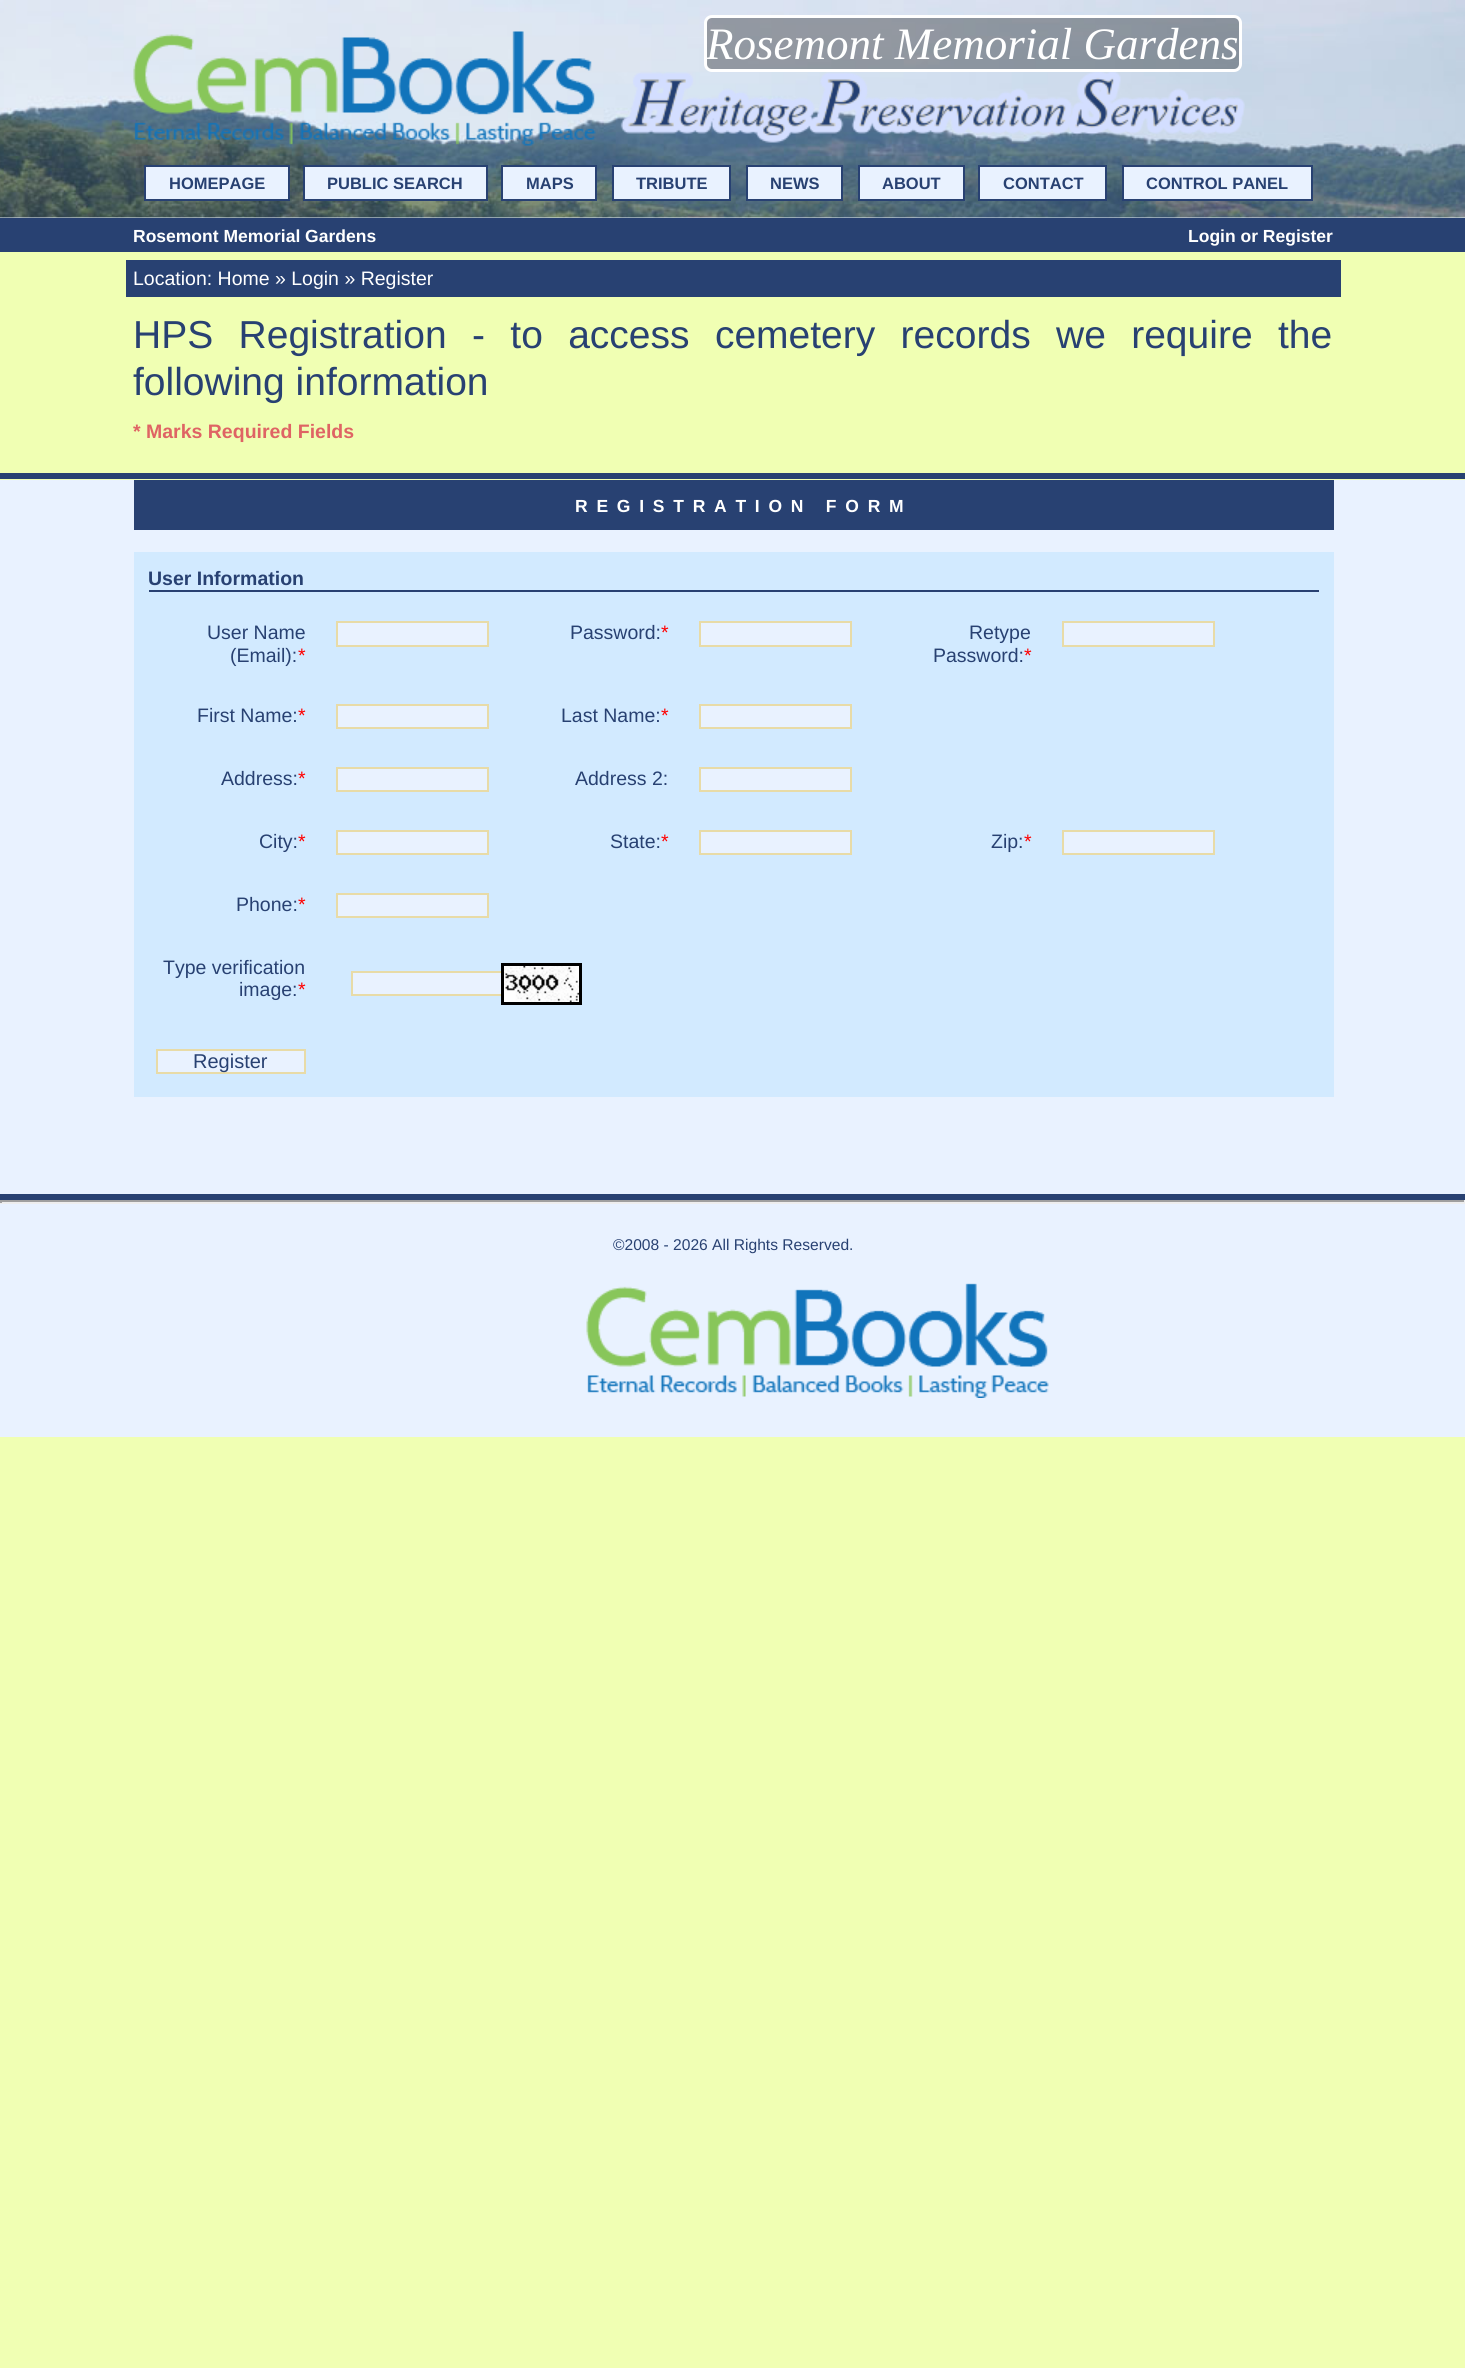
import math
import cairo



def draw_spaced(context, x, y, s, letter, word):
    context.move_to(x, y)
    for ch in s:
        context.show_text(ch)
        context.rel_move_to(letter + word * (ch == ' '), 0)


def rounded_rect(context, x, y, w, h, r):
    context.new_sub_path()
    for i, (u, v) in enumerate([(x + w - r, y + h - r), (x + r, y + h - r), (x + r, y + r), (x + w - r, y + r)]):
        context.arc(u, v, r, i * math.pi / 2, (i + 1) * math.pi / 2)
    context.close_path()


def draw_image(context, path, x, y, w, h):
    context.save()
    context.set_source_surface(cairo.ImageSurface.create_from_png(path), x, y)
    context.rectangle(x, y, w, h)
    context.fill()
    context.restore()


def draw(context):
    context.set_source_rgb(240 / 255, 1, 179 / 255)
    context.paint()
    context.set_source_rgb(233 / 255, 242 / 255, 1)
    context.rectangle(0, 217, 1465, 1)
    context.fill()
    draw_image(context, "images/1.png", 0, 0, 1465, 218)
    context.set_source_rgba(0, 0, 0, 0.33)
    rounded_rect(context, 705.5, 16.5, 535, 54, 6.5)
    context.fill_preserve()
    context.set_source_rgb(1, 1, 1)
    context.set_line_width(3)
    context.stroke()
    draw_image(context, "images/2.png", 133, 31, 463, 115)
    draw_image(context, "images/3.png", 620, 72, 625, 71)
    context.set_source_rgb(233 / 255, 242 / 255, 1)
    context.rectangle(145, 166, 144, 34)
    context.fill_preserve()
    context.set_source_rgb(40 / 255, 65 / 255, 114 / 255)
    context.set_line_width(2)
    context.stroke()
    context.set_source_rgb(233 / 255, 242 / 255, 1)
    context.rectangle(304, 166, 183, 34)
    context.fill_preserve()
    context.set_source_rgb(40 / 255, 65 / 255, 114 / 255)
    context.stroke()
    context.set_source_rgb(233 / 255, 242 / 255, 1)
    context.rectangle(502, 166, 94, 34)
    context.fill_preserve()
    context.set_source_rgb(40 / 255, 65 / 255, 114 / 255)
    context.stroke()
    context.set_source_rgb(233 / 255, 242 / 255, 1)
    context.rectangle(613, 166, 117, 34)
    context.fill_preserve()
    context.set_source_rgb(40 / 255, 65 / 255, 114 / 255)
    context.stroke()
    context.set_source_rgb(233 / 255, 242 / 255, 1)
    context.rectangle(747, 166, 95, 34)
    context.fill_preserve()
    context.set_source_rgb(40 / 255, 65 / 255, 114 / 255)
    context.stroke()
    context.set_source_rgb(233 / 255, 242 / 255, 1)
    context.rectangle(859, 166, 105, 34)
    context.fill_preserve()
    context.set_source_rgb(40 / 255, 65 / 255, 114 / 255)
    context.stroke()
    context.set_source_rgb(233 / 255, 242 / 255, 1)
    context.rectangle(979, 166, 127, 34)
    context.fill_preserve()
    context.set_source_rgb(40 / 255, 65 / 255, 114 / 255)
    context.stroke()
    context.set_source_rgb(233 / 255, 242 / 255, 1)
    context.rectangle(1123, 166, 189, 34)
    context.fill_preserve()
    context.set_source_rgb(40 / 255, 65 / 255, 114 / 255)
    context.stroke()
    context.rectangle(0, 218, 1465, 34)
    context.fill()
    context.rectangle(126, 260, 1215, 37)
    context.fill()
    context.rectangle(0, 473, 1465, 6)
    context.fill()
    context.set_source_rgb(233 / 255, 242 / 255, 1)
    context.rectangle(0, 480, 1465, 714)
    context.fill()
    context.set_source_rgb(40 / 255, 65 / 255, 114 / 255)
    context.rectangle(0, 1194, 1465, 6)
    context.fill()
    context.rectangle(134, 480, 1200, 50)
    context.fill()
    context.set_source_rgb(210 / 255, 234 / 255, 1)
    context.rectangle(134, 552, 1200, 545)
    context.fill()
    context.set_source_rgb(40 / 255, 65 / 255, 114 / 255)
    context.rectangle(149, 590, 1170, 2)
    context.fill()
    context.set_source_rgb(233 / 255, 242 / 255, 1)
    context.rectangle(337, 622, 151, 24)
    context.fill_preserve()
    context.set_source_rgb(232 / 255, 219 / 255, 167 / 255)
    context.stroke()
    context.set_source_rgb(233 / 255, 242 / 255, 1)
    context.rectangle(700, 622, 151, 24)
    context.fill_preserve()
    context.set_source_rgb(232 / 255, 219 / 255, 167 / 255)
    context.stroke()
    context.set_source_rgb(233 / 255, 242 / 255, 1)
    context.rectangle(1063, 622, 151, 24)
    context.fill_preserve()
    context.set_source_rgb(232 / 255, 219 / 255, 167 / 255)
    context.stroke()
    context.set_source_rgb(233 / 255, 242 / 255, 1)
    context.rectangle(337, 705, 151, 23)
    context.fill_preserve()
    context.set_source_rgb(232 / 255, 219 / 255, 167 / 255)
    context.stroke()
    context.set_source_rgb(233 / 255, 242 / 255, 1)
    context.rectangle(700, 705, 151, 23)
    context.fill_preserve()
    context.set_source_rgb(232 / 255, 219 / 255, 167 / 255)
    context.stroke()
    context.set_source_rgb(233 / 255, 242 / 255, 1)
    context.rectangle(337, 768, 151, 23)
    context.fill_preserve()
    context.set_source_rgb(232 / 255, 219 / 255, 167 / 255)
    context.stroke()
    context.set_source_rgb(233 / 255, 242 / 255, 1)
    context.rectangle(700, 768, 151, 23)
    context.fill_preserve()
    context.set_source_rgb(232 / 255, 219 / 255, 167 / 255)
    context.stroke()
    context.set_source_rgb(233 / 255, 242 / 255, 1)
    context.rectangle(337, 831, 151, 23)
    context.fill_preserve()
    context.set_source_rgb(232 / 255, 219 / 255, 167 / 255)
    context.stroke()
    context.set_source_rgb(233 / 255, 242 / 255, 1)
    context.rectangle(700, 831, 151, 23)
    context.fill_preserve()
    context.set_source_rgb(232 / 255, 219 / 255, 167 / 255)
    context.stroke()
    context.set_source_rgb(233 / 255, 242 / 255, 1)
    context.rectangle(1063, 831, 151, 23)
    context.fill_preserve()
    context.set_source_rgb(232 / 255, 219 / 255, 167 / 255)
    context.stroke()
    context.set_source_rgb(233 / 255, 242 / 255, 1)
    context.rectangle(337, 894, 151, 23)
    context.fill_preserve()
    context.set_source_rgb(232 / 255, 219 / 255, 167 / 255)
    context.stroke()
    context.set_source_rgb(233 / 255, 242 / 255, 1)
    context.rectangle(353, 973, 148, 21)
    context.fill()
    context.rectangle(352, 972, 151, 23)
    context.set_source_rgb(232 / 255, 219 / 255, 167 / 255)
    context.stroke()
    context.rectangle(502.5, 964.5, 78, 39)
    context.set_source_rgb(0, 0, 0)
    context.set_line_width(3)
    context.stroke()
    draw_image(context, "images/4.png", 504, 966, 75, 36)
    context.set_source_rgb(233 / 255, 242 / 255, 1)
    context.rectangle(157, 1050, 148, 23)
    context.fill_preserve()
    context.set_source_rgb(232 / 255, 219 / 255, 167 / 255)
    context.set_line_width(2)
    context.stroke()
    context.set_source_rgb(159 / 255, 159 / 255, 159 / 255)
    context.rectangle(0, 1200, 1465, 2)
    context.fill()
    context.set_source_rgb(238 / 255, 238 / 255, 238 / 255)
    context.rectangle(1464, 1200, 1, 3)
    context.fill()
    context.rectangle(0, 1202, 1465, 2)
    context.fill()
    context.set_source_rgb(159 / 255, 159 / 255, 159 / 255)
    context.rectangle(0, 1200, 2, 3)
    context.fill()
    context.set_source_rgb(233 / 255, 242 / 255, 1)
    context.rectangle(0, 1204, 1465, 233)
    context.fill()
    draw_image(context, "images/5.png", 586, 1283, 463, 115)
    context.select_font_face("Liberation Serif", cairo.FontSlant.ITALIC)
    context.set_font_size(45)
    context.set_source_rgb(1, 1, 1)
    context.move_to(706, 59)
    context.show_text("Rosemont Memorial Gardens")
    context.select_font_face("Liberation Sans", cairo.FontSlant.NORMAL, cairo.FontWeight.BOLD)
    context.set_font_size(16.5)
    context.set_source_rgb(40 / 255, 65 / 255, 114 / 255)
    context.move_to(169, 189)
    context.show_text("HOMEPAGE")
    context.move_to(327, 189)
    context.show_text("PUBLIC SEARCH")
    context.move_to(526, 189)
    context.show_text("MAPS")
    context.move_to(636, 189)
    context.show_text("TRIBUTE")
    context.move_to(770, 189)
    context.show_text("NEWS")
    context.move_to(882, 189)
    context.show_text("ABOUT")
    context.move_to(1003, 189)
    context.show_text("CONTACT")
    context.move_to(1146, 189)
    context.show_text("CONTROL PANEL")
    context.set_font_size(17.5)
    context.set_source_rgb(1, 1, 1)
    context.move_to(133, 242)
    context.show_text("Rosemont Memorial Gardens")
    context.move_to(1188, 242)
    context.show_text("Login or Register")
    context.select_font_face("Liberation Sans")
    context.set_font_size(19.5)
    context.move_to(133, 285)
    context.show_text("Location: Home » Login » Register")
    context.set_font_size(39)
    context.set_source_rgb(40 / 255, 65 / 255, 114 / 255)
    draw_spaced(context, 133, 348, "HPS Registration - to access cemetery records we require the", 0, 14.5)
    context.move_to(133, 395)
    context.show_text("following information")
    context.select_font_face("Liberation Sans", cairo.FontSlant.NORMAL, cairo.FontWeight.BOLD)
    context.set_font_size(19.5)
    context.set_source_rgb(223 / 255, 100 / 255, 100 / 255)
    context.move_to(133, 438)
    context.show_text("* Marks Required Fields")
    context.set_font_size(17.5)
    context.set_source_rgb(1, 1, 1)
    draw_spaced(context, 575, 512, "REGISTRATION FORM", 8.75, 0)
    context.set_font_size(19.5)
    context.set_source_rgb(40 / 255, 65 / 255, 114 / 255)
    context.move_to(148, 585)
    context.show_text("User Information")
    context.select_font_face("Liberation Sans")
    context.move_to(207, 639)
    context.show_text("User Name")
    context.move_to(230, 662)
    context.show_text("(Email):")
    context.set_source_rgb(1, 0, 0)
    context.move_to(298, 662)
    context.show_text("*")
    context.set_source_rgb(40 / 255, 65 / 255, 114 / 255)
    context.move_to(570, 639)
    context.show_text("Password:")
    context.set_source_rgb(1, 0, 0)
    context.move_to(661, 639)
    context.show_text("*")
    context.set_source_rgb(40 / 255, 65 / 255, 114 / 255)
    context.move_to(969, 639)
    context.show_text("Retype")
    context.move_to(933, 662)
    context.show_text("Password:")
    context.set_source_rgb(1, 0, 0)
    context.move_to(1024, 662)
    context.show_text("*")
    context.set_source_rgb(40 / 255, 65 / 255, 114 / 255)
    context.move_to(197, 722)
    context.show_text("First Name:")
    context.set_source_rgb(1, 0, 0)
    context.move_to(298, 722)
    context.show_text("*")
    context.set_source_rgb(40 / 255, 65 / 255, 114 / 255)
    context.move_to(561, 722)
    context.show_text("Last Name:")
    context.set_source_rgb(1, 0, 0)
    context.move_to(661, 722)
    context.show_text("*")
    context.set_source_rgb(40 / 255, 65 / 255, 114 / 255)
    context.move_to(221, 785)
    context.show_text("Address:")
    context.set_source_rgb(1, 0, 0)
    context.move_to(298, 785)
    context.show_text("*")
    context.set_source_rgb(40 / 255, 65 / 255, 114 / 255)
    context.move_to(575, 785)
    context.show_text("Address 2:")
    context.move_to(259, 848)
    context.show_text("City:")
    context.set_source_rgb(1, 0, 0)
    context.move_to(298, 848)
    context.show_text("*")
    context.set_source_rgb(40 / 255, 65 / 255, 114 / 255)
    context.move_to(610, 848)
    context.show_text("State:")
    context.set_source_rgb(1, 0, 0)
    context.move_to(661, 848)
    context.show_text("*")
    context.set_source_rgb(40 / 255, 65 / 255, 114 / 255)
    context.move_to(991, 848)
    context.show_text("Zip:")
    context.set_source_rgb(1, 0, 0)
    context.move_to(1024, 848)
    context.show_text("*")
    context.set_source_rgb(40 / 255, 65 / 255, 114 / 255)
    context.move_to(236, 911)
    context.show_text("Phone:")
    context.set_source_rgb(1, 0, 0)
    context.move_to(298, 911)
    context.show_text("*")
    context.set_source_rgb(40 / 255, 65 / 255, 114 / 255)
    context.move_to(163, 974)
    context.show_text("Type verification")
    context.move_to(239, 996)
    context.show_text("image:")
    context.set_source_rgb(1, 0, 0)
    context.move_to(298, 996)
    context.show_text("*")
    context.set_font_size(20)
    context.set_source_rgb(40 / 255, 65 / 255, 114 / 255)
    context.move_to(193, 1068)
    context.show_text("Register")
    context.set_font_size(15.6)
    context.move_to(613, 1250)
    context.show_text("©2008 - 2026 All Rights Reserved.")


surface = cairo.ImageSurface(cairo.Format.RGB24, 1465, 2368)
context = cairo.Context(surface)
options = cairo.FontOptions()
options.set_hint_metrics(cairo.HintMetrics.OFF)
options.set_hint_style(cairo.HintStyle.NONE)
context.set_font_options(options)
context.set_miter_limit(4)
draw(context)
surface.write_to_png("out.png")
